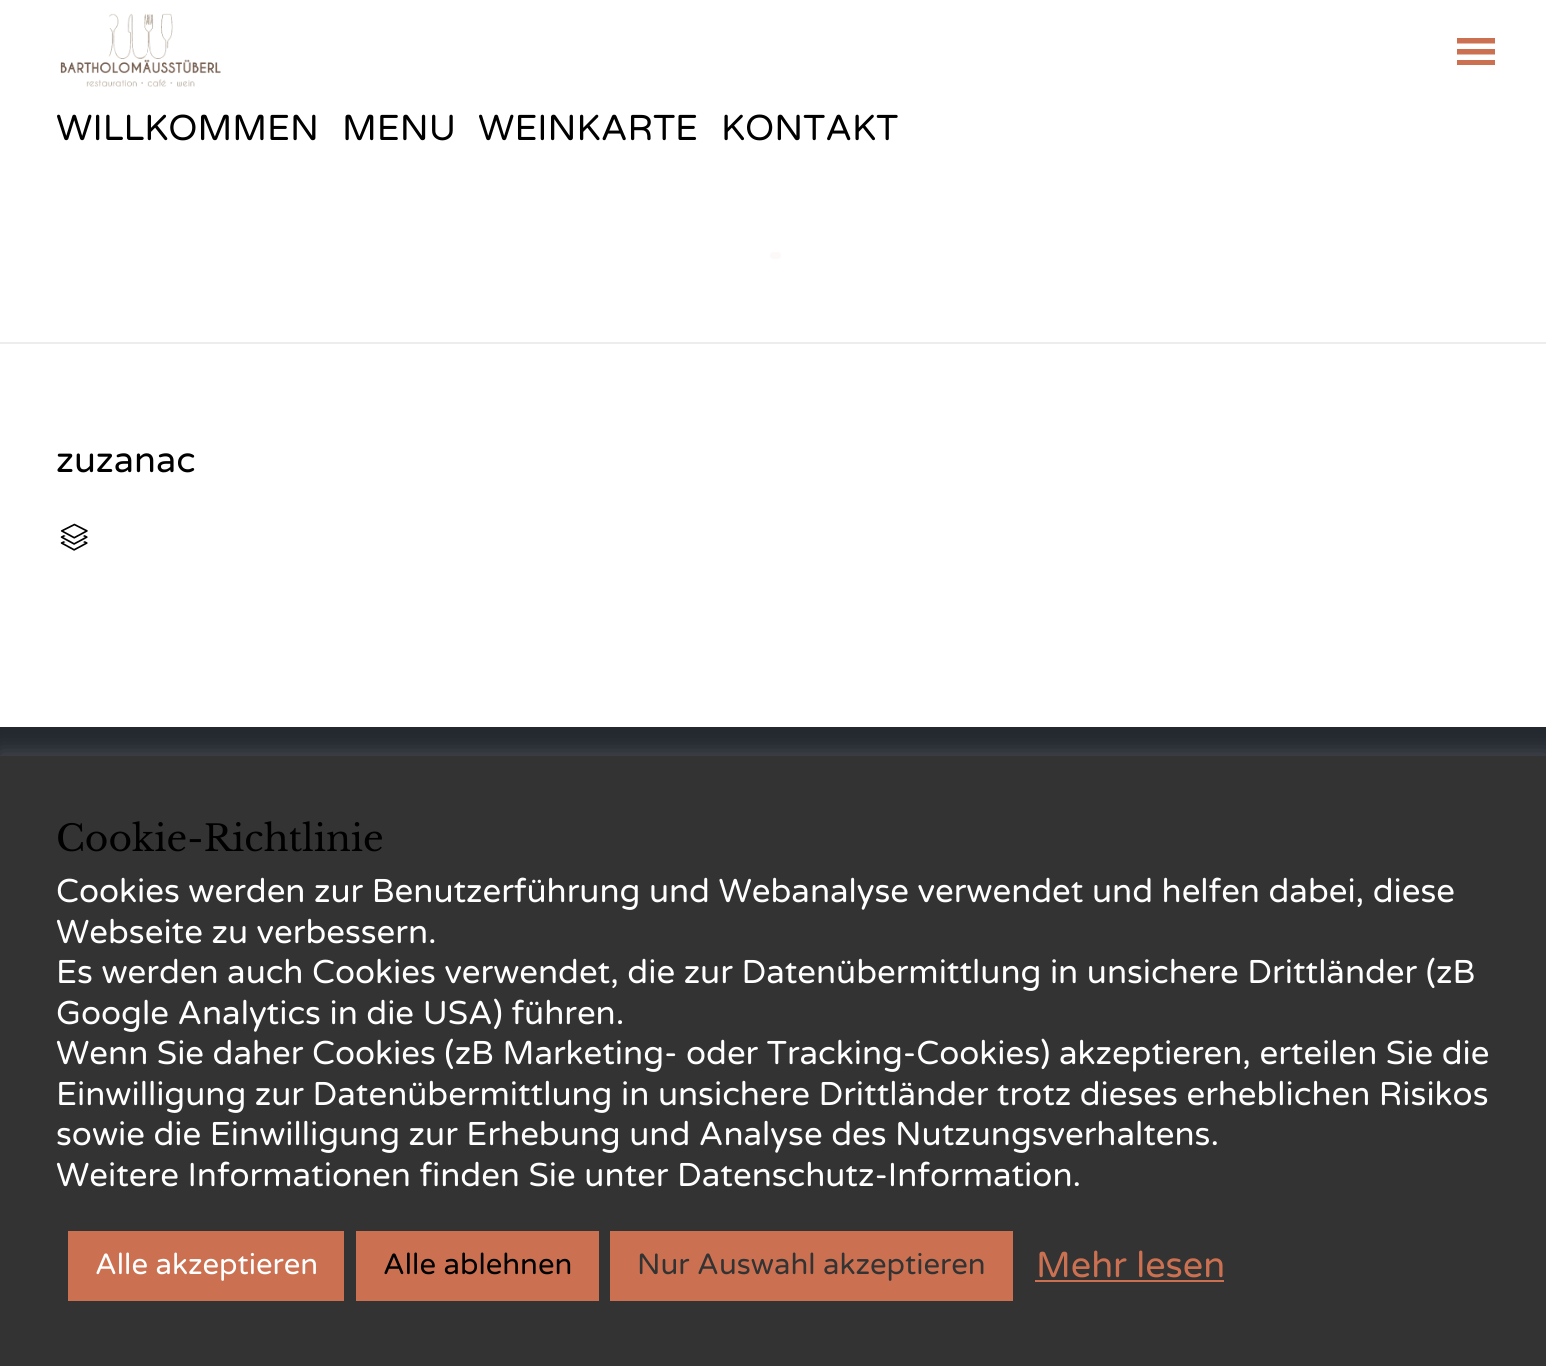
import math
import cairo



def rounded_rect(context, x, y, w, h, r):
    context.new_sub_path()
    for i, (u, v) in enumerate([(x + w - r, y + h - r), (x + r, y + h - r), (x + r, y + r), (x + w - r, y + r)]):
        context.arc(u, v, r, i * math.pi / 2, (i + 1) * math.pi / 2)
    context.close_path()


def draw_shadow(context, x, y, w, h, r, blur, alpha):
    context.push_group_with_content(cairo.Content.ALPHA)
    context.set_operator(cairo.Operator.SOURCE)
    for i in range(15, -16, -2):
        e = blur * i / 6
        if min(w, h) + 2 * e > 0:
            context.set_source_rgba(0, 0, 0, alpha * math.erfc((i - 1) / 8.5) / 2)
            rounded_rect(context, x - e, y - e, w + 2 * e, h + 2 * e, max(0, min(r + e + blur * .6, min(w, h) / 2 + e)))
            context.fill()
    context.mask(context.pop_group())


def draw_image(context, path, x, y, w, h):
    context.save()
    context.set_source_surface(cairo.ImageSurface.create_from_png(path), x, y)
    context.rectangle(x, y, w, h)
    context.fill()
    context.restore()


def draw(context):
    context.set_source_rgb(1, 1, 1)
    context.paint()
    draw_image(context, "images/1.png", 60, 13, 161, 74)
    context.set_source_rgb(203 / 255, 113 / 255, 82 / 255)
    context.new_path()
    context.move_to(1457, 65)
    context.line_to(1495, 65)
    context.line_to(1495, 60)
    context.line_to(1457, 60)
    context.close_path()
    context.move_to(1457, 38)
    context.line_to(1457, 43.5)
    context.line_to(1495, 43.5)
    context.line_to(1495, 38)
    context.close_path()
    context.move_to(1457, 54.5)
    context.line_to(1495, 54.5)
    context.line_to(1495, 49)
    context.line_to(1457, 49)
    context.close_path()
    context.fill()
    context.set_source_rgb(237 / 255, 237 / 255, 237 / 255)
    context.rectangle(0, 342, 1546, 2)
    context.fill()
    context.set_source_rgb(253 / 255, 249 / 255, 248 / 255)
    rounded_rect(context, 770, 252, 11, 7, 3.5)
    context.fill()
    draw_image(context, "images/2.png", 60, 523, 28, 28)
    context.set_source_rgb(35 / 255, 40 / 255, 47 / 255)
    context.rectangle(0, 727, 1546, 29)
    context.fill()
    context.set_source_rgb(172 / 255, 171 / 255, 171 / 255)
    draw_shadow(context, 0, 754, 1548, 612, 0, 11, 0.3)
    context.set_source_rgb(51 / 255, 51 / 255, 51 / 255)
    context.rectangle(0, 756, 1546, 610)
    context.fill()
    context.set_source_rgb(203 / 255, 113 / 255, 82 / 255)
    context.rectangle(68, 1231, 276, 70)
    context.fill()
    context.rectangle(356, 1231, 243, 70)
    context.fill()
    context.rectangle(610, 1231, 403, 70)
    context.fill()
    context.rectangle(1035, 1280, 189, 2)
    context.fill()
    context.select_font_face("Varela Round")
    context.set_font_size(36)
    context.set_source_rgb(0, 0, 0)
    context.move_to(56, 140)
    context.show_text("WILLKOMMEN")
    context.move_to(342, 140)
    context.show_text("MENU")
    context.move_to(478, 140)
    context.show_text("WEINKARTE")
    context.move_to(721, 140)
    context.show_text("KONTAKT")
    context.move_to(56, 472)
    context.show_text("zuzanac")
    context.select_font_face("Libre Baskerville")
    context.move_to(56, 851)
    context.show_text("Cookie-Richtlinie")
    context.select_font_face("Varela Round")
    context.set_font_size(33)
    context.set_source_rgb(1, 1, 1)
    context.move_to(56, 902)
    context.show_text("Cookies werden zur Benutzerführung und Webanalyse verwendet und helfen dabei, diese")
    context.move_to(56, 943)
    context.show_text("Webseite zu verbessern.")
    context.move_to(56, 983)
    context.show_text("Es werden auch Cookies verwendet, die zur Datenübermittlung in unsichere Drittländer (zB")
    context.move_to(56, 1024)
    context.show_text("Google Analytics in die USA) führen.")
    context.move_to(56, 1064)
    context.show_text("Wenn Sie daher Cookies (zB Marketing- oder Tracking-Cookies) akzeptieren, erteilen Sie die")
    context.move_to(56, 1105)
    context.show_text("Einwilligung zur Datenübermittlung in unsichere Drittländer trotz dieses erheblichen Risikos")
    context.move_to(56, 1145)
    context.show_text("sowie die Einwilligung zur Erhebung und Analyse des Nutzungsverhaltens.")
    context.move_to(56, 1186)
    context.show_text("Weitere Informationen finden Sie unter Datenschutz-Information.")
    context.set_font_size(29.25)
    context.move_to(95, 1274)
    context.show_text("Alle akzeptieren")
    context.set_source_rgb(0, 0, 0)
    context.move_to(383, 1274)
    context.show_text("Alle ablehnen")
    context.set_source_rgb(51 / 255, 51 / 255, 51 / 255)
    context.move_to(637, 1274)
    context.show_text("Nur Auswahl akzeptieren")
    context.set_font_size(36)
    context.set_source_rgb(203 / 255, 113 / 255, 82 / 255)
    context.move_to(1036, 1277)
    context.show_text("Mehr lesen")


surface = cairo.ImageSurface(cairo.Format.RGB24, 1546, 1366)
context = cairo.Context(surface)
options = cairo.FontOptions()
options.set_hint_metrics(cairo.HintMetrics.OFF)
options.set_hint_style(cairo.HintStyle.NONE)
context.set_font_options(options)
context.set_miter_limit(4)
draw(context)
surface.write_to_png("out.png")
